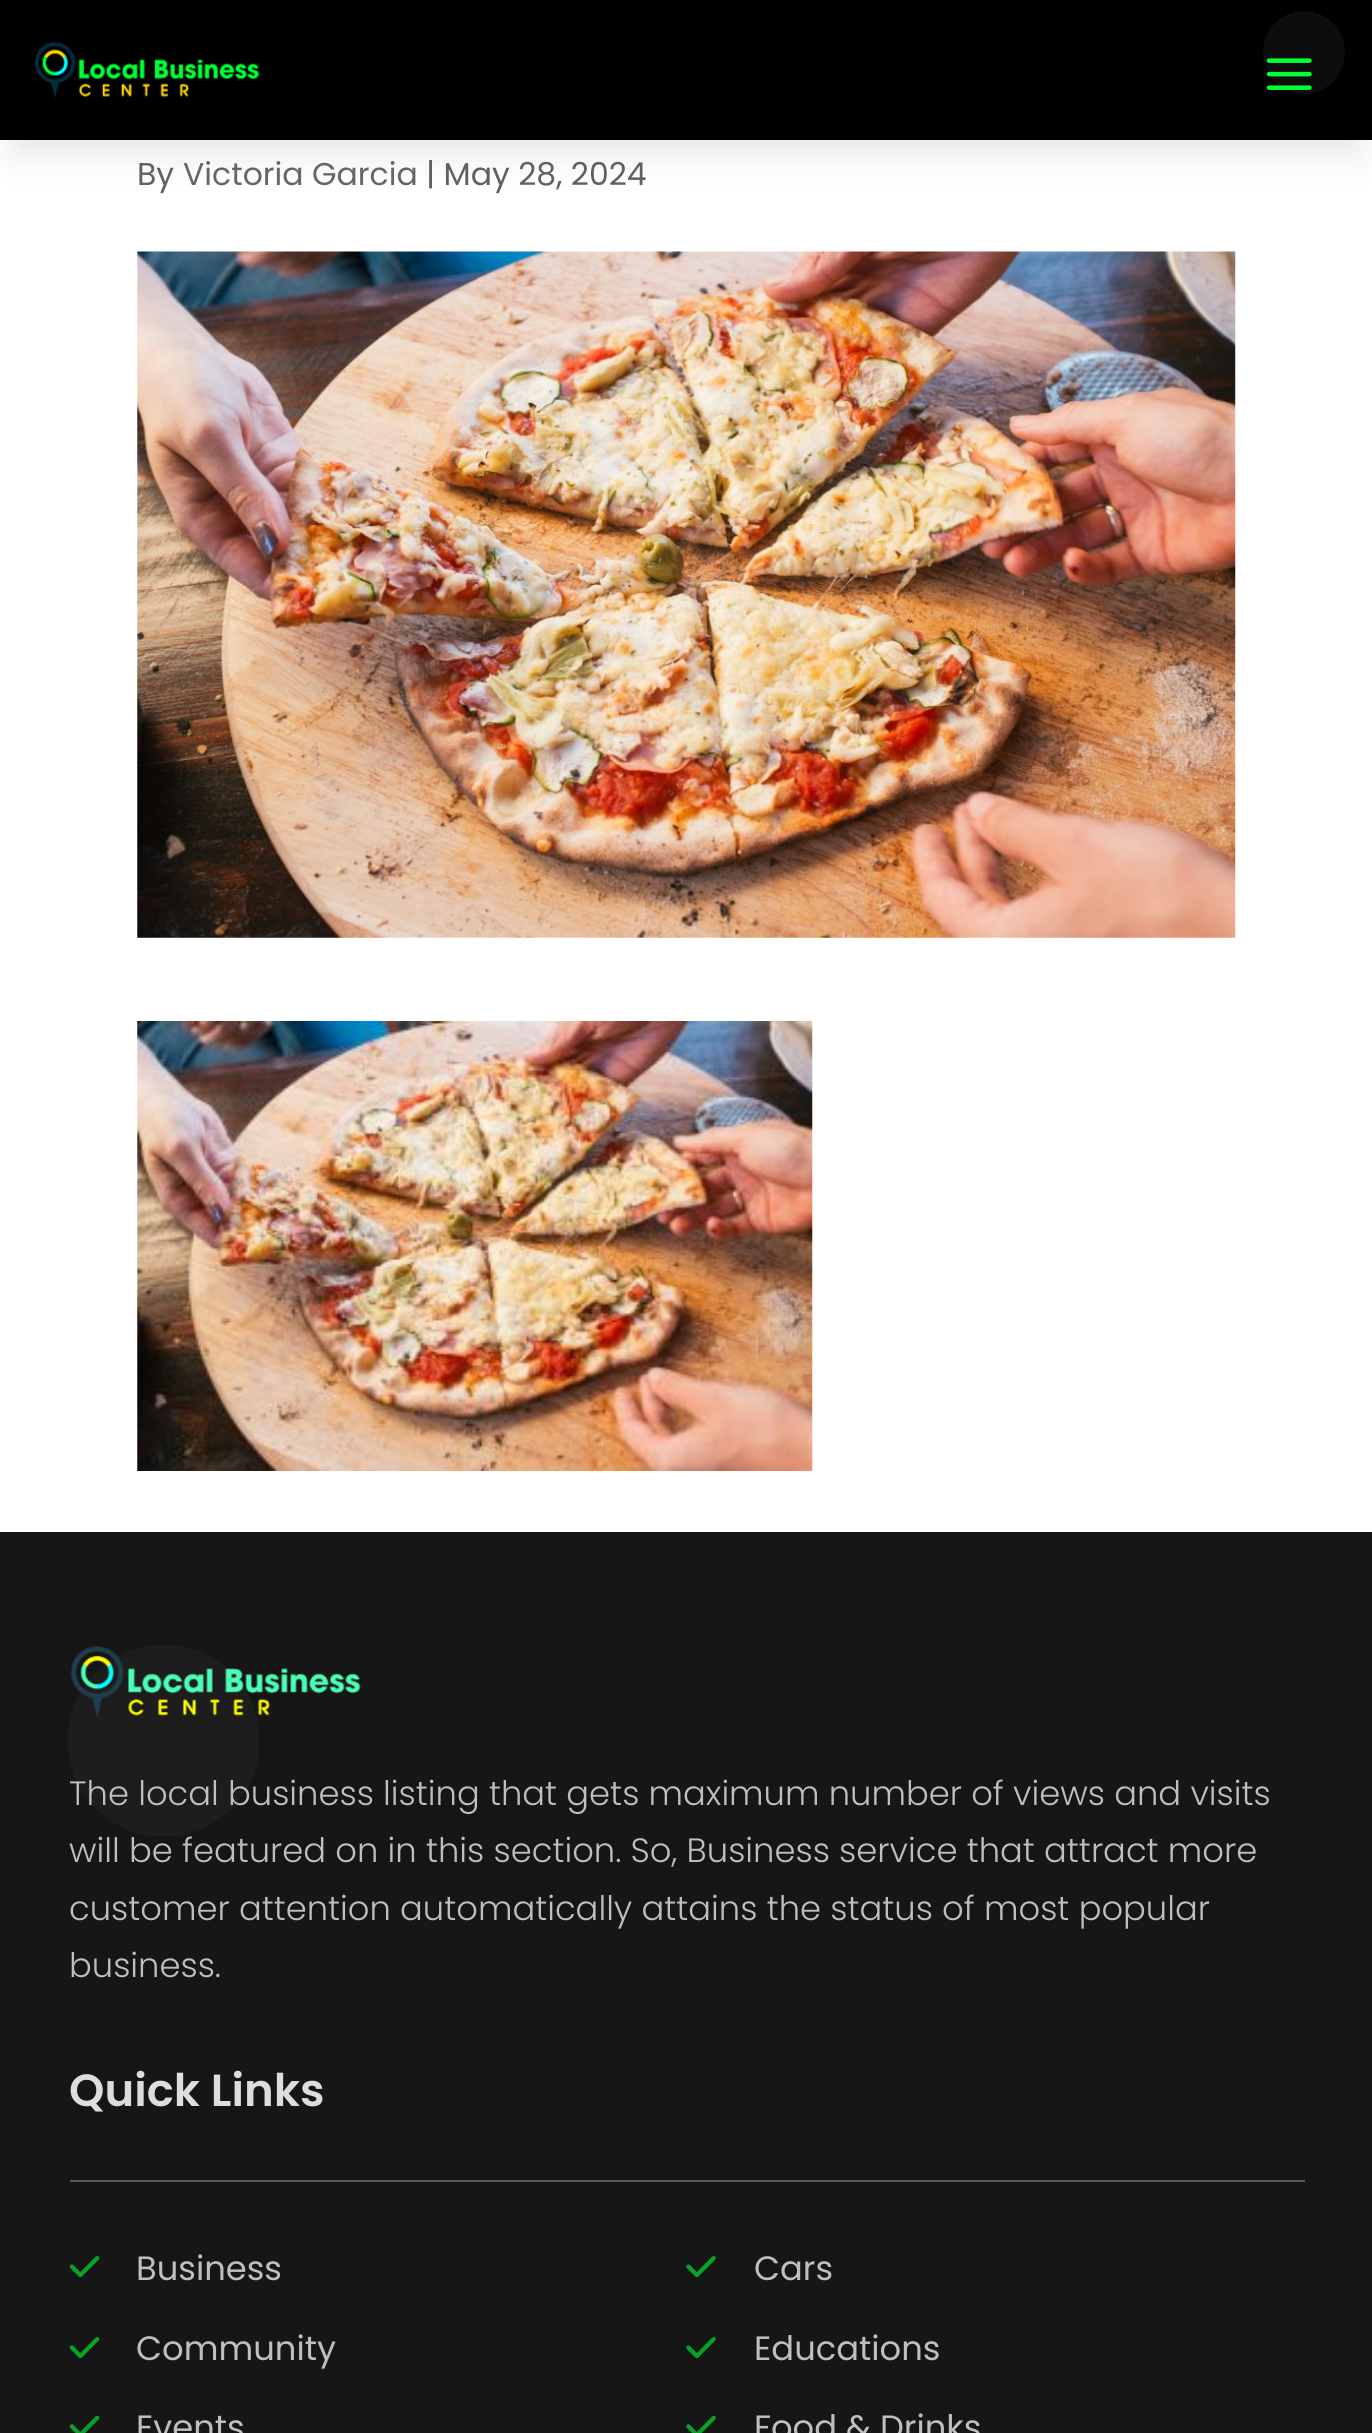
import math
import cairo



def rounded_rect(context, x, y, w, h, r):
    context.new_sub_path()
    for i, (u, v) in enumerate([(x + w - r, y + h - r), (x + r, y + h - r), (x + r, y + r), (x + w - r, y + r)]):
        context.arc(u, v, r, i * math.pi / 2, (i + 1) * math.pi / 2)
    context.close_path()


def draw_shadow(context, x, y, w, h, r, blur, alpha):
    context.push_group_with_content(cairo.Content.ALPHA)
    context.set_operator(cairo.Operator.SOURCE)
    for i in range(15, -16, -2):
        e = blur * i / 6
        if min(w, h) + 2 * e > 0:
            context.set_source_rgba(0, 0, 0, alpha * math.erfc((i - 1) / 8.5) / 2)
            rounded_rect(context, x - e, y - e, w + 2 * e, h + 2 * e, max(0, min(r + e + blur * .6, min(w, h) / 2 + e)))
            context.fill()
    context.mask(context.pop_group())


def draw_image(context, path, x, y, w, h):
    context.save()
    context.set_source_surface(cairo.ImageSurface.create_from_png(path), x, y)
    context.rectangle(x, y, w, h)
    context.fill()
    context.restore()


def draw(context):
    context.set_source_rgb(1, 1, 1)
    context.paint()
    context.set_source_rgb(0, 0, 0)
    draw_shadow(context, 14, 41, 1345, 112, 0, 20, 0.1)
    context.set_source_rgb(0, 0, 0)
    context.rectangle(0, 0, 1372, 140)
    context.fill()
    context.set_source_rgb(13 / 255, 13 / 255, 13 / 255)
    context.new_path()
    context.move_to(1304, 11)
    context.curve_to(1281, 11, 1263, 30, 1263, 52)
    context.curve_to(1263, 75, 1281, 94, 1304, 94)
    context.curve_to(1327, 94, 1345, 75, 1345, 52)
    context.curve_to(1345, 30, 1327, 11, 1304, 11)
    context.close_path()
    context.fill()
    draw_image(context, "images/1.png", 34, 41, 225, 57)
    draw_image(context, "images/2.png", 1266, 58, 46, 32)
    draw_image(context, "images/3.png", 137, 251, 1099, 687)
    draw_image(context, "images/4.png", 137, 1021, 676, 450)
    context.set_source_rgb(22 / 255, 22 / 255, 22 / 255)
    context.rectangle(0, 1532, 1372, 901)
    context.fill()
    context.set_source_rgb(29 / 255, 29 / 255, 29 / 255)
    context.new_path()
    context.move_to(68, 1731)
    context.curve_to(73, 1685, 110, 1648, 157, 1645)
    context.line_to(171, 1645)
    context.curve_to(217, 1648, 254, 1684, 259, 1730)
    context.line_to(259, 1752)
    context.curve_to(254, 1795, 220, 1830, 176, 1836)
    context.line_to(151, 1836)
    context.curve_to(107, 1830, 73, 1795, 68, 1751)
    context.close_path()
    context.fill()
    draw_image(context, "images/5.png", 70, 1646, 291, 72)
    context.set_source_rgb(90 / 255, 90 / 255, 90 / 255)
    context.rectangle(70, 2180, 1235, 2)
    context.fill()
    draw_image(context, "images/6.png", 69, 2256, 31, 22)
    draw_image(context, "images/7.png", 686, 2256, 30, 22)
    draw_image(context, "images/6.png", 69, 2337, 31, 22)
    draw_image(context, "images/7.png", 686, 2337, 30, 22)
    draw_image(context, "images/8.png", 69, 2415, 31, 18)
    draw_image(context, "images/9.png", 686, 2415, 30, 18)
    context.select_font_face("Poppins")
    context.set_font_size(31.5)
    context.set_source_rgb(96 / 255, 96 / 255, 96 / 255)
    context.move_to(137, 185)
    context.show_text("By")
    context.set_source_rgb(102 / 255, 102 / 255, 102 / 255)
    context.move_to(183, 185)
    context.show_text("Victoria Garcia")
    context.set_source_rgb(96 / 255, 96 / 255, 96 / 255)
    context.move_to(426, 185)
    context.show_text("| May 28, 2024")
    context.select_font_face("Poppins Light")
    context.set_font_size(33.75)
    context.set_source_rgb(191 / 255, 191 / 255, 191 / 255)
    context.move_to(69, 1805)
    context.show_text("The local business listing that gets maximum number of views and visits")
    context.move_to(69, 1862)
    context.show_text("will be featured on in this section. So, Business service that attract more")
    context.move_to(69, 1920)
    context.show_text("customer attention automatically attains the status of most popular")
    context.move_to(69, 1977)
    context.show_text("business.")
    context.select_font_face("Poppins SemiBold")
    context.set_font_size(45)
    context.set_source_rgb(221 / 255, 221 / 255, 221 / 255)
    context.move_to(69, 2106)
    context.show_text("Quick Links")
    context.select_font_face("Poppins")
    context.set_font_size(33.75)
    context.set_source_rgb(191 / 255, 191 / 255, 191 / 255)
    context.move_to(136, 2280)
    context.show_text("Business")
    context.move_to(754, 2280)
    context.show_text("Cars")
    context.move_to(136, 2360)
    context.show_text("Community")
    context.move_to(754, 2360)
    context.show_text("Educations")
    context.move_to(136, 2439)
    context.show_text("Events")
    context.move_to(754, 2439)
    context.show_text("Food & Drinks")


surface = cairo.ImageSurface(cairo.Format.RGB24, 1372, 2433)
context = cairo.Context(surface)
options = cairo.FontOptions()
options.set_hint_metrics(cairo.HintMetrics.OFF)
options.set_hint_style(cairo.HintStyle.NONE)
context.set_font_options(options)
context.set_miter_limit(4)
draw(context)
surface.write_to_png("out.png")
